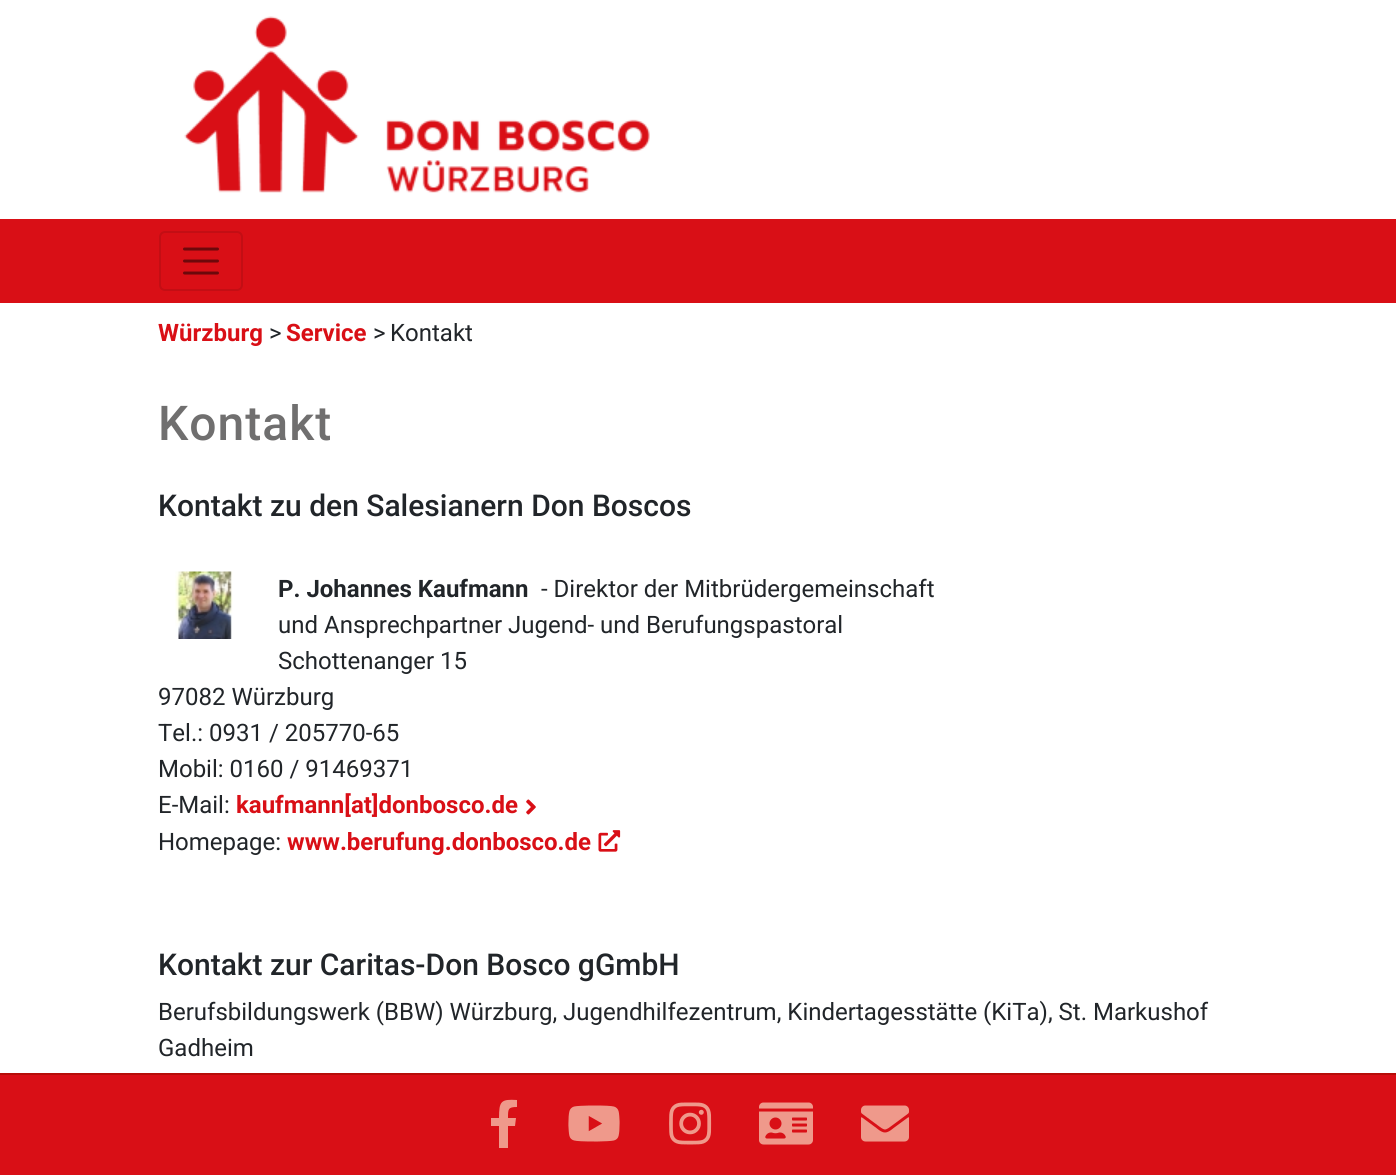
import math
import cairo



def draw_spaced(context, x, y, s, letter, word):
    context.move_to(x, y)
    for ch in s:
        context.show_text(ch)
        context.rel_move_to(letter + word * (ch == ' '), 0)


def rounded_rect(context, x, y, w, h, r):
    context.new_sub_path()
    for i, (u, v) in enumerate([(x + w - r, y + h - r), (x + r, y + h - r), (x + r, y + r), (x + w - r, y + r)]):
        context.arc(u, v, r, i * math.pi / 2, (i + 1) * math.pi / 2)
    context.close_path()


def draw_image(context, path, x, y, w, h):
    context.save()
    context.set_source_surface(cairo.ImageSurface.create_from_png(path), x, y)
    context.rectangle(x, y, w, h)
    context.fill()
    context.restore()


def draw(context):
    context.set_source_rgb(1, 1, 1)
    context.paint()
    draw_image(context, "images/1.png", 184, 16, 466, 177)
    context.set_source_rgb(217 / 255, 15 / 255, 22 / 255)
    context.rectangle(0, 219, 1396, 84)
    context.fill()
    rounded_rect(context, 160, 232, 82, 58, 5)
    context.set_source_rgb(195 / 255, 14 / 255, 20 / 255)
    context.stroke()
    context.new_path()
    context.move_to(184.5, 249)
    context.line_to(217.5, 249)
    context.move_to(184.5, 261)
    context.line_to(217.5, 261)
    context.move_to(184.5, 273)
    context.line_to(217.5, 273)
    context.set_source_rgb(109 / 255, 8 / 255, 11 / 255)
    context.set_line_width(3)
    context.set_line_cap(cairo.LineCap.ROUND)
    context.stroke()
    draw_image(context, "images/2.png", 175, 571, 58, 68)
    draw_image(context, "images/3.png", 526, 799, 10, 16)
    draw_image(context, "images/4.png", 598, 830, 23, 22)
    context.set_source_rgb(217 / 255, 15 / 255, 22 / 255)
    context.rectangle(0, 1075, 1396, 100)
    context.fill()
    context.set_source_rgb(182 / 255, 13 / 255, 8 / 255)
    context.rectangle(0, 1073, 1396, 2)
    context.fill()
    context.set_source_rgb(239 / 255, 153 / 255, 139 / 255)
    context.new_path()
    context.move_to(515, 1126)
    context.line_to(508, 1126)
    context.line_to(508, 1148)
    context.line_to(499, 1148)
    context.line_to(499, 1126)
    context.line_to(491, 1126)
    context.line_to(491, 1118)
    context.line_to(499, 1118)
    context.curve_to(499, 1101, 501, 1099, 517, 1100)
    context.line_to(517, 1107)
    context.curve_to(508, 1107, 508, 1109, 508, 1118)
    context.line_to(516, 1118)
    context.close_path()
    context.fill()
    draw_image(context, "images/5.png", 568, 1105, 52, 37)
    draw_image(context, "images/6.png", 669, 1102, 43, 43)
    draw_image(context, "images/7.png", 759, 1102, 54, 43)
    draw_image(context, "images/8.png", 861, 1105, 48, 37)
    context.select_font_face("Roboto", cairo.FontSlant.NORMAL, cairo.FontWeight.BOLD)
    context.set_font_size(24)
    context.set_source_rgb(217 / 255, 15 / 255, 22 / 255)
    context.move_to(158, 341)
    context.show_text("Würzburg")
    context.select_font_face("Roboto")
    context.set_source_rgb(33 / 255, 37 / 255, 41 / 255)
    context.move_to(269, 341)
    context.show_text(">")
    context.select_font_face("Roboto", cairo.FontSlant.NORMAL, cairo.FontWeight.BOLD)
    context.set_source_rgb(217 / 255, 15 / 255, 22 / 255)
    context.move_to(286, 341)
    context.show_text("Service")
    context.select_font_face("Roboto")
    context.set_source_rgb(33 / 255, 37 / 255, 41 / 255)
    context.move_to(373, 341)
    context.show_text(">")
    context.move_to(390, 341)
    context.show_text("Kontakt")
    context.select_font_face("Roboto Medium")
    context.set_font_size(48)
    context.set_source_rgb(112 / 255, 111 / 255, 111 / 255)
    draw_spaced(context, 158, 440, "Kontakt", 1, 0)
    context.set_font_size(30)
    context.set_source_rgb(33 / 255, 37 / 255, 41 / 255)
    context.move_to(158, 516)
    context.show_text("Kontakt zu den Salesianern Don Boscos")
    context.select_font_face("Roboto", cairo.FontSlant.NORMAL, cairo.FontWeight.BOLD)
    context.set_font_size(24)
    context.move_to(278, 597)
    context.show_text("P. Johannes Kaufmann")
    context.select_font_face("Roboto")
    context.move_to(541, 597)
    context.show_text("- Direktor der Mitbrüdergemeinschaft")
    context.move_to(278, 633)
    context.show_text("und Ansprechpartner Jugend- und Berufungspastoral")
    context.move_to(278, 669)
    context.show_text("Schottenanger 15")
    context.move_to(158, 705)
    context.show_text("97082 Würzburg")
    context.move_to(158, 741)
    context.show_text("Tel.: 0931 / 205770-65")
    context.move_to(158, 777)
    context.show_text("Mobil: 0160 / 91469371")
    context.move_to(158, 813)
    context.show_text("E-Mail:")
    context.select_font_face("Roboto", cairo.FontSlant.NORMAL, cairo.FontWeight.BOLD)
    context.set_source_rgb(217 / 255, 15 / 255, 22 / 255)
    context.move_to(236, 813)
    context.show_text("kaufmann[at]donbosco.de")
    context.select_font_face("Roboto")
    context.set_source_rgb(33 / 255, 37 / 255, 41 / 255)
    context.move_to(158, 850)
    context.show_text("Homepage:")
    context.select_font_face("Roboto", cairo.FontSlant.NORMAL, cairo.FontWeight.BOLD)
    context.set_source_rgb(217 / 255, 15 / 255, 22 / 255)
    context.move_to(287, 850)
    context.show_text("www.berufung.donbosco.de")
    context.select_font_face("Roboto Medium")
    context.set_font_size(30)
    context.set_source_rgb(33 / 255, 37 / 255, 41 / 255)
    context.move_to(158, 975)
    context.show_text("Kontakt zur Caritas-Don Bosco gGmbH")
    context.select_font_face("Roboto")
    context.set_font_size(24)
    context.move_to(158, 1020)
    context.show_text("Berufsbildungswerk (BBW) Würzburg, Jugendhilfezentrum, Kindertagesstätte (KiTa), St. Markushof")
    context.move_to(158, 1056)
    context.show_text("Gadheim")


surface = cairo.ImageSurface(cairo.Format.RGB24, 1396, 1175)
context = cairo.Context(surface)
options = cairo.FontOptions()
options.set_hint_metrics(cairo.HintMetrics.OFF)
options.set_hint_style(cairo.HintStyle.NONE)
context.set_font_options(options)
context.set_miter_limit(4)
draw(context)
surface.write_to_png("out.png")
